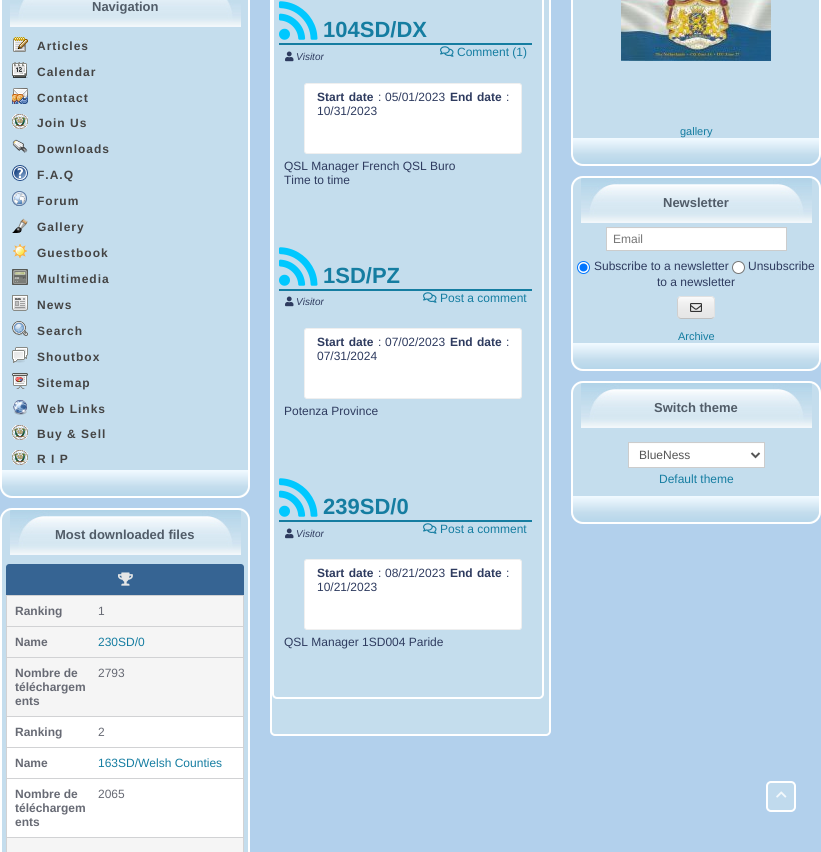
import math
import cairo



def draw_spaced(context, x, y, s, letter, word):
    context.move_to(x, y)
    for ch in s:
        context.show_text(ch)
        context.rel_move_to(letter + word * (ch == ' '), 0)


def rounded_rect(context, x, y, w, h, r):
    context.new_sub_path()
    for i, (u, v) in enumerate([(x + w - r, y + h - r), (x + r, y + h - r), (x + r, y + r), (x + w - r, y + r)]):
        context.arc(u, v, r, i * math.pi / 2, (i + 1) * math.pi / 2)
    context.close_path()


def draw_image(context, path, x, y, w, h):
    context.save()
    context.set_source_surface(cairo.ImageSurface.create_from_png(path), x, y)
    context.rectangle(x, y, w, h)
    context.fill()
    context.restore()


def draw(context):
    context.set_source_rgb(178 / 255, 208 / 255, 236 / 255)
    context.paint()
    context.set_source_rgb(196 / 255, 221 / 255, 237 / 255)
    rounded_rect(context, 0, -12, 250, 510, 12)
    context.fill()
    draw_image(context, "images/1.png", 10, 0, 231, 27)
    rounded_rect(context, 1, -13, 248, 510, 11)
    context.set_source_rgb(1, 1, 1)
    context.stroke()
    draw_image(context, "images/2.png", 13, 37, 15, 15)
    draw_image(context, "images/3.png", 12, 62, 16, 16)
    draw_image(context, "images/4.png", 12, 88, 16, 16)
    draw_image(context, "images/5.png", 12, 114, 16, 15)
    draw_image(context, "images/6.png", 12, 139, 16, 14)
    draw_image(context, "images/7.png", 12, 165, 16, 16)
    draw_image(context, "images/8.png", 12, 191, 15, 15)
    draw_image(context, "images/9.png", 12, 218, 16, 15)
    draw_image(context, "images/10.png", 13, 244, 14, 14)
    draw_image(context, "images/11.png", 12, 269, 16, 16)
    draw_image(context, "images/12.png", 12, 295, 16, 16)
    draw_image(context, "images/13.png", 12, 321, 16, 15)
    draw_image(context, "images/14.png", 12, 347, 16, 16)
    draw_image(context, "images/15.png", 12, 373, 16, 16)
    draw_image(context, "images/16.png", 13, 400, 14, 15)
    draw_image(context, "images/5.png", 12, 425, 16, 15)
    draw_image(context, "images/5.png", 12, 450, 16, 15)
    gradient = cairo.LinearGradient(125, 470, 125, 496)
    gradient.add_color_stop_rgba(0.03, 240 / 255, 249 / 255, 1, 1)
    gradient.add_color_stop_rgba(0.64, 196 / 255, 221 / 255, 237 / 255, 1)
    gradient.add_color_stop_rgba(1, 182 / 255, 214 / 255, 234 / 255, 1)
    context.set_source(gradient)
    context.new_path()
    context.move_to(2, 470)
    context.line_to(248, 470)
    context.line_to(248, 484)
    context.curve_to(248, 490.5, 242.5, 496, 236, 496)
    context.line_to(14, 496)
    context.curve_to(7.5, 496, 2, 490.5, 2, 484)
    context.close_path()
    context.fill()
    context.set_source_rgb(196 / 255, 221 / 255, 237 / 255)
    rounded_rect(context, 0, 508, 250, 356, 12)
    context.fill()
    draw_image(context, "images/17.png", 10, 510, 231, 45)
    rounded_rect(context, 1, 509, 248, 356, 11)
    context.set_source_rgb(1, 1, 1)
    context.stroke()
    context.set_source_rgb(54 / 255, 100 / 255, 147 / 255)
    context.new_path()
    context.move_to(9, 564)
    context.line_to(241, 564)
    context.curve_to(242.5, 564, 244, 565.5, 244, 567)
    context.line_to(244, 595)
    context.line_to(6, 595)
    context.line_to(6, 567)
    context.curve_to(6, 565.5, 7.5, 564, 9, 564)
    context.close_path()
    context.fill()
    draw_image(context, "images/18.png", 118, 572, 15, 14)
    context.set_source_rgb(245 / 255, 245 / 255, 245 / 255)
    context.rectangle(7, 596, 236, 30)
    context.fill()
    context.set_source_rgb(209 / 255, 210 / 255, 212 / 255)
    context.rectangle(6, 595, 238, 1)
    context.fill()
    context.rectangle(243, 595, 1, 31)
    context.fill()
    context.rectangle(6, 595, 1, 31)
    context.fill()
    context.set_source_rgb(245 / 255, 245 / 255, 245 / 255)
    context.rectangle(7, 627, 236, 30)
    context.fill()
    context.set_source_rgb(209 / 255, 210 / 255, 212 / 255)
    context.rectangle(6, 626, 238, 1)
    context.fill()
    context.rectangle(243, 626, 1, 31)
    context.fill()
    context.rectangle(6, 626, 1, 31)
    context.fill()
    context.set_source_rgb(245 / 255, 245 / 255, 245 / 255)
    context.rectangle(7, 658, 236, 58)
    context.fill()
    context.set_source_rgb(209 / 255, 210 / 255, 212 / 255)
    context.rectangle(6, 657, 238, 1)
    context.fill()
    context.rectangle(243, 657, 1, 59)
    context.fill()
    context.rectangle(6, 657, 1, 59)
    context.fill()
    context.set_source_rgb(1, 1, 1)
    context.rectangle(7, 717, 236, 30)
    context.fill()
    context.set_source_rgb(209 / 255, 210 / 255, 212 / 255)
    context.rectangle(6, 716, 238, 1)
    context.fill()
    context.rectangle(243, 716, 1, 31)
    context.fill()
    context.rectangle(6, 716, 1, 31)
    context.fill()
    context.set_source_rgb(1, 1, 1)
    context.rectangle(7, 748, 236, 30)
    context.fill()
    context.set_source_rgb(209 / 255, 210 / 255, 212 / 255)
    context.rectangle(6, 747, 238, 1)
    context.fill()
    context.rectangle(243, 747, 1, 31)
    context.fill()
    context.rectangle(6, 747, 1, 31)
    context.fill()
    context.set_source_rgb(1, 1, 1)
    context.rectangle(7, 779, 236, 58)
    context.fill()
    context.set_source_rgb(209 / 255, 210 / 255, 212 / 255)
    context.rectangle(6, 778, 238, 1)
    context.fill()
    context.rectangle(243, 778, 1, 59)
    context.fill()
    context.rectangle(6, 778, 1, 59)
    context.fill()
    context.set_source_rgb(245 / 255, 245 / 255, 245 / 255)
    context.rectangle(7, 838, 236, 14)
    context.fill()
    context.set_source_rgb(209 / 255, 210 / 255, 212 / 255)
    context.rectangle(6, 837, 238, 1)
    context.fill()
    context.rectangle(243, 837, 1, 15)
    context.fill()
    context.rectangle(6, 837, 1, 15)
    context.fill()
    context.set_source_rgb(196 / 255, 221 / 255, 237 / 255)
    rounded_rect(context, 271, -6, 279, 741, 4)
    context.fill_preserve()
    context.set_source_rgb(1, 1, 1)
    context.stroke()
    rounded_rect(context, 273, -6, 270, 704, 4)
    context.stroke()
    context.set_source_rgb(21 / 255, 125 / 255, 161 / 255)
    context.rectangle(279, 43, 253, 2)
    context.fill()
    draw_image(context, "images/19.png", 279, 1, 39, 39)
    draw_image(context, "images/20.png", 285, 51, 9, 11)
    draw_image(context, "images/21.png", 440, 46, 14, 11)
    context.set_source_rgb(1, 1, 1)
    rounded_rect(context, 304.5, 83.5, 217, 70, 2.5)
    context.fill_preserve()
    context.set_source_rgb(239 / 255, 239 / 255, 239 / 255)
    context.set_line_width(1)
    context.stroke()
    context.set_source_rgb(21 / 255, 125 / 255, 161 / 255)
    context.rectangle(279, 289, 253, 2)
    context.fill()
    draw_image(context, "images/19.png", 279, 247, 39, 39)
    draw_image(context, "images/20.png", 285, 296, 9, 11)
    draw_image(context, "images/21.png", 423, 292, 14, 11)
    context.set_source_rgb(1, 1, 1)
    rounded_rect(context, 304.5, 328.5, 217, 70, 2.5)
    context.fill_preserve()
    context.set_source_rgb(239 / 255, 239 / 255, 239 / 255)
    context.stroke()
    context.set_source_rgb(21 / 255, 125 / 255, 161 / 255)
    context.rectangle(279, 520, 253, 2)
    context.fill()
    draw_image(context, "images/19.png", 279, 478, 39, 39)
    draw_image(context, "images/20.png", 285, 528, 9, 11)
    draw_image(context, "images/21.png", 423, 523, 14, 11)
    context.set_source_rgb(1, 1, 1)
    rounded_rect(context, 304.5, 559.5, 217, 70, 2.5)
    context.fill_preserve()
    context.set_source_rgb(239 / 255, 239 / 255, 239 / 255)
    context.stroke()
    context.set_source_rgb(196 / 255, 221 / 255, 237 / 255)
    rounded_rect(context, 572, -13, 248, 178, 11)
    context.fill_preserve()
    context.set_source_rgb(1, 1, 1)
    context.set_line_width(2)
    context.stroke()
    draw_image(context, "images/22.png", 621, 0, 150, 61)
    gradient = cairo.LinearGradient(696, 138, 696, 164)
    gradient.add_color_stop_rgba(0.03, 240 / 255, 249 / 255, 1, 1)
    gradient.add_color_stop_rgba(0.64, 196 / 255, 221 / 255, 237 / 255, 1)
    gradient.add_color_stop_rgba(1, 182 / 255, 214 / 255, 234 / 255, 1)
    context.set_source(gradient)
    context.new_path()
    context.move_to(573, 138)
    context.line_to(819, 138)
    context.line_to(819, 152)
    context.curve_to(819, 158.5, 813.5, 164, 807, 164)
    context.line_to(585, 164)
    context.curve_to(578.5, 164, 573, 158.5, 573, 152)
    context.close_path()
    context.fill()
    context.set_source_rgb(196 / 255, 221 / 255, 237 / 255)
    rounded_rect(context, 571, 176, 250, 195, 12)
    context.fill()
    draw_image(context, "images/17.png", 581, 178, 231, 45)
    rounded_rect(context, 572, 177, 248, 193, 11)
    context.set_source_rgb(1, 1, 1)
    context.stroke()
    context.rectangle(607, 229, 179, 21)
    context.fill()
    context.set_source_rgb(252 / 255, 252 / 255, 252 / 255)
    context.rectangle(607, 228, 179, 1)
    context.fill()
    context.rectangle(606.5, 227.5, 180, 23)
    context.set_source_rgb(204 / 255, 204 / 255, 204 / 255)
    context.set_line_width(1)
    context.stroke()
    context.set_source_rgb(1, 1, 1)
    context.arc(583.5, 267.5, 6, 0, 2 * math.pi)
    context.fill_preserve()
    context.set_source_rgb(0, 117 / 255, 1)
    context.stroke()
    context.arc(583.5, 267.5, 4, 0, 2 * math.pi)
    context.fill()
    context.set_source_rgb(1, 1, 1)
    context.arc(738.5, 267.5, 6, 0, 2 * math.pi)
    context.fill_preserve()
    context.set_source_rgb(118 / 255, 118 / 255, 118 / 255)
    context.stroke()
    context.set_source_rgb(249 / 255, 249 / 255, 249 / 255)
    rounded_rect(context, 677, 296, 38, 23, 4)
    context.fill()
    context.save()
    rounded_rect(context, 677, 296, 38, 23, 4)
    context.clip()
    gradient = cairo.LinearGradient(696, 297, 696, 318)
    gradient.add_color_stop_rgba(0, 1, 1, 1, 0.18)
    gradient.add_color_stop_rgba(1, 56 / 255, 56 / 255, 56 / 255, 0.1)
    context.set_source(gradient)
    context.rectangle(677, 297, 38, 21)
    context.fill()
    context.restore()
    context.new_path()
    context.move_to(678.5, 297.5)
    context.curve_to(679, 297, 680, 296.5, 681, 296.5)
    context.line_to(711, 296.5)
    context.curve_to(712, 296.5, 713, 297, 713.5, 297.5)
    context.curve_to(714, 298, 714.5, 299, 714.5, 300)
    context.line_to(714.5, 315)
    context.curve_to(714.5, 316, 714, 317, 713.5, 317.5)
    context.set_source_rgb(225 / 255, 225 / 255, 225 / 255)
    context.stroke()
    context.new_path()
    context.move_to(713.5, 317.5)
    context.curve_to(713, 318, 712, 318.5, 711, 318.5)
    context.line_to(681, 318.5)
    context.curve_to(680, 318.5, 679, 318, 678.5, 317.5)
    context.set_source_rgb(191 / 255, 191 / 255, 191 / 255)
    context.stroke()
    context.new_path()
    context.move_to(678.5, 317.5)
    context.curve_to(678, 317, 677.5, 316, 677.5, 315)
    context.line_to(677.5, 300)
    context.curve_to(677.5, 299, 678, 298, 678.5, 297.5)
    context.set_source_rgb(207 / 255, 207 / 255, 207 / 255)
    context.stroke()
    draw_image(context, "images/23.png", 690, 303, 12, 9)
    gradient = cairo.LinearGradient(696, 343, 696, 369)
    gradient.add_color_stop_rgba(0.03, 240 / 255, 249 / 255, 1, 1)
    gradient.add_color_stop_rgba(0.64, 196 / 255, 221 / 255, 237 / 255, 1)
    gradient.add_color_stop_rgba(1, 182 / 255, 214 / 255, 234 / 255, 1)
    context.set_source(gradient)
    context.new_path()
    context.move_to(573, 343)
    context.line_to(819, 343)
    context.line_to(819, 357)
    context.curve_to(819, 363.5, 813.5, 369, 807, 369)
    context.line_to(585, 369)
    context.curve_to(578.5, 369, 573, 363.5, 573, 357)
    context.close_path()
    context.fill()
    context.set_source_rgb(196 / 255, 221 / 255, 237 / 255)
    rounded_rect(context, 571, 381, 250, 143, 12)
    context.fill()
    draw_image(context, "images/17.png", 581, 383, 231, 45)
    rounded_rect(context, 572, 382, 248, 141, 11)
    context.set_source_rgb(1, 1, 1)
    context.set_line_width(2)
    context.stroke()
    context.rectangle(629, 444, 135, 23)
    context.fill()
    context.set_source_rgb(252 / 255, 252 / 255, 252 / 255)
    context.rectangle(629, 443, 135, 1)
    context.fill()
    context.rectangle(628.5, 442.5, 136, 25)
    context.set_source_rgb(204 / 255, 204 / 255, 204 / 255)
    context.set_line_width(1)
    context.stroke()
    context.new_path()
    context.move_to(751.5, 453)
    context.line_to(755.5, 457)
    context.line_to(759.5, 453)
    context.set_source_rgb(85 / 255, 85 / 255, 85 / 255)
    context.set_line_width(2)
    context.stroke()
    gradient = cairo.LinearGradient(696, 496, 696, 522)
    gradient.add_color_stop_rgba(0.03, 240 / 255, 249 / 255, 1, 1)
    gradient.add_color_stop_rgba(0.64, 196 / 255, 221 / 255, 237 / 255, 1)
    gradient.add_color_stop_rgba(1, 182 / 255, 214 / 255, 234 / 255, 1)
    context.set_source(gradient)
    context.new_path()
    context.move_to(573, 496)
    context.line_to(819, 496)
    context.line_to(819, 510)
    context.curve_to(819, 516.5, 813.5, 522, 807, 522)
    context.line_to(585, 522)
    context.curve_to(578.5, 522, 573, 516.5, 573, 510)
    context.close_path()
    context.fill()
    context.set_source_rgb(192 / 255, 218 / 255, 237 / 255)
    rounded_rect(context, 767, 782, 28, 29, 4)
    context.fill_preserve()
    context.set_source_rgb(1, 1, 1)
    context.stroke()
    draw_image(context, "images/24.png", 776, 791, 11, 7)
    context.select_font_face("Liberation Sans", cairo.FontSlant.NORMAL, cairo.FontWeight.BOLD)
    context.set_font_size(13)
    context.set_source_rgb(81 / 255, 92 / 255, 104 / 255)
    context.move_to(92, 11)
    context.show_text("Navigation")
    context.set_font_size(12)
    context.set_source_rgb(68 / 255, 68 / 255, 68 / 255)
    draw_spaced(context, 37, 50, "Articles", 1, 0)
    draw_spaced(context, 37, 76, "Calendar", 1, 0)
    draw_spaced(context, 37, 102, "Contact", 1, 0)
    draw_spaced(context, 37, 127, "Join Us", 1, 0)
    draw_spaced(context, 37, 153, "Downloads", 1, 0)
    draw_spaced(context, 37, 179, "F.A.Q", 1, 0)
    draw_spaced(context, 37, 205, "Forum", 1, 0)
    draw_spaced(context, 37, 231, "Gallery", 1, 0)
    draw_spaced(context, 37, 257, "Guestbook", 1, 0)
    draw_spaced(context, 37, 283, "Multimedia", 1, 0)
    draw_spaced(context, 37, 309, "News", 1, 0)
    draw_spaced(context, 37, 335, "Search", 1, 0)
    draw_spaced(context, 37, 361, "Shoutbox", 1, 0)
    draw_spaced(context, 37, 387, "Sitemap", 1, 0)
    draw_spaced(context, 37, 413, "Web Links", 1, 0)
    draw_spaced(context, 37, 438, "Buy & Sell", 1, 0)
    draw_spaced(context, 37, 463, "R I P", 1, 0)
    context.set_font_size(13)
    context.set_source_rgb(81 / 255, 92 / 255, 104 / 255)
    context.move_to(55, 539)
    context.show_text("Most downloaded files")
    context.set_font_size(12)
    context.set_source_rgb(103 / 255, 106 / 255, 116 / 255)
    context.move_to(15, 615)
    context.show_text("Ranking")
    context.select_font_face("Liberation Sans")
    context.move_to(98, 615)
    context.show_text("1")
    context.select_font_face("Liberation Sans", cairo.FontSlant.NORMAL, cairo.FontWeight.BOLD)
    context.move_to(15, 646)
    context.show_text("Name")
    context.select_font_face("Liberation Sans")
    context.set_source_rgb(21 / 255, 125 / 255, 161 / 255)
    context.move_to(98, 646)
    context.show_text("230SD/0")
    context.select_font_face("Liberation Sans", cairo.FontSlant.NORMAL, cairo.FontWeight.BOLD)
    context.set_source_rgb(103 / 255, 106 / 255, 116 / 255)
    context.move_to(15, 677)
    context.show_text("Nombre de")
    context.move_to(15, 691)
    context.show_text("téléchargem")
    context.move_to(15, 705)
    context.show_text("ents")
    context.select_font_face("Liberation Sans")
    context.move_to(98, 677)
    context.show_text("2793")
    context.select_font_face("Liberation Sans", cairo.FontSlant.NORMAL, cairo.FontWeight.BOLD)
    context.move_to(15, 736)
    context.show_text("Ranking")
    context.select_font_face("Liberation Sans")
    context.move_to(98, 736)
    context.show_text("2")
    context.select_font_face("Liberation Sans", cairo.FontSlant.NORMAL, cairo.FontWeight.BOLD)
    context.move_to(15, 767)
    context.show_text("Name")
    context.select_font_face("Liberation Sans")
    context.set_source_rgb(21 / 255, 125 / 255, 161 / 255)
    context.move_to(98, 767)
    context.show_text("163SD/Welsh Counties")
    context.select_font_face("Liberation Sans", cairo.FontSlant.NORMAL, cairo.FontWeight.BOLD)
    context.set_source_rgb(103 / 255, 106 / 255, 116 / 255)
    context.move_to(15, 798)
    context.show_text("Nombre de")
    context.move_to(15, 812)
    context.show_text("téléchargem")
    context.move_to(15, 826)
    context.show_text("ents")
    context.select_font_face("Liberation Sans")
    context.move_to(98, 798)
    context.show_text("2065")
    context.select_font_face("Liberation Sans", cairo.FontSlant.NORMAL, cairo.FontWeight.BOLD)
    context.set_font_size(22)
    context.set_source_rgb(21 / 255, 125 / 255, 161 / 255)
    context.move_to(323, 37)
    context.show_text("104SD/DX")
    context.select_font_face("Liberation Sans", cairo.FontSlant.ITALIC)
    context.set_font_size(10)
    context.set_source_rgb(46 / 255, 59 / 255, 95 / 255)
    context.move_to(296, 60)
    context.show_text("Visitor")
    context.select_font_face("Liberation Sans")
    context.set_font_size(12)
    context.set_source_rgb(21 / 255, 125 / 255, 161 / 255)
    context.move_to(457, 56)
    context.show_text("Comment (1)")
    context.select_font_face("Liberation Sans", cairo.FontSlant.NORMAL, cairo.FontWeight.BOLD)
    context.set_source_rgb(46 / 255, 59 / 255, 95 / 255)
    draw_spaced(context, 317, 101, "Start date", 0, 1)
    context.select_font_face("Liberation Sans")
    context.move_to(378, 101)
    context.show_text(":")
    context.move_to(385, 101)
    context.show_text("05/01/2023")
    context.select_font_face("Liberation Sans", cairo.FontSlant.NORMAL, cairo.FontWeight.BOLD)
    draw_spaced(context, 450, 101, "End date", 0, 1)
    context.select_font_face("Liberation Sans")
    context.move_to(506, 101)
    context.show_text(":")
    context.move_to(317, 115)
    context.show_text("10/31/2023")
    context.move_to(284, 170)
    context.show_text("QSL Manager French QSL Buro")
    context.move_to(284, 184)
    context.show_text("Time to time")
    context.select_font_face("Liberation Sans", cairo.FontSlant.NORMAL, cairo.FontWeight.BOLD)
    context.set_font_size(22)
    context.set_source_rgb(21 / 255, 125 / 255, 161 / 255)
    context.move_to(323, 283)
    context.show_text("1SD/PZ")
    context.select_font_face("Liberation Sans", cairo.FontSlant.ITALIC)
    context.set_font_size(10)
    context.set_source_rgb(46 / 255, 59 / 255, 95 / 255)
    context.move_to(296, 305)
    context.show_text("Visitor")
    context.select_font_face("Liberation Sans")
    context.set_font_size(12)
    context.set_source_rgb(21 / 255, 125 / 255, 161 / 255)
    context.move_to(440, 302)
    context.show_text("Post a comment")
    context.select_font_face("Liberation Sans", cairo.FontSlant.NORMAL, cairo.FontWeight.BOLD)
    context.set_source_rgb(46 / 255, 59 / 255, 95 / 255)
    draw_spaced(context, 317, 346, "Start date", 0, 1)
    context.select_font_face("Liberation Sans")
    context.move_to(378, 346)
    context.show_text(":")
    context.move_to(385, 346)
    context.show_text("07/02/2023")
    context.select_font_face("Liberation Sans", cairo.FontSlant.NORMAL, cairo.FontWeight.BOLD)
    draw_spaced(context, 450, 346, "End date", 0, 1)
    context.select_font_face("Liberation Sans")
    context.move_to(506, 346)
    context.show_text(":")
    context.move_to(317, 360)
    context.show_text("07/31/2024")
    context.move_to(284, 415)
    context.show_text("Potenza Province")
    context.select_font_face("Liberation Sans", cairo.FontSlant.NORMAL, cairo.FontWeight.BOLD)
    context.set_font_size(22)
    context.set_source_rgb(21 / 255, 125 / 255, 161 / 255)
    context.move_to(323, 514)
    context.show_text("239SD/0")
    context.select_font_face("Liberation Sans", cairo.FontSlant.ITALIC)
    context.set_font_size(10)
    context.set_source_rgb(46 / 255, 59 / 255, 95 / 255)
    context.move_to(296, 537)
    context.show_text("Visitor")
    context.select_font_face("Liberation Sans")
    context.set_font_size(12)
    context.set_source_rgb(21 / 255, 125 / 255, 161 / 255)
    context.move_to(440, 533)
    context.show_text("Post a comment")
    context.select_font_face("Liberation Sans", cairo.FontSlant.NORMAL, cairo.FontWeight.BOLD)
    context.set_source_rgb(46 / 255, 59 / 255, 95 / 255)
    draw_spaced(context, 317, 577, "Start date", 0, 1)
    context.select_font_face("Liberation Sans")
    context.move_to(378, 577)
    context.show_text(":")
    context.move_to(385, 577)
    context.show_text("08/21/2023")
    context.select_font_face("Liberation Sans", cairo.FontSlant.NORMAL, cairo.FontWeight.BOLD)
    draw_spaced(context, 450, 577, "End date", 0, 1)
    context.select_font_face("Liberation Sans")
    context.move_to(506, 577)
    context.show_text(":")
    context.move_to(317, 591)
    context.show_text("10/21/2023")
    context.move_to(284, 646)
    context.show_text("QSL Manager 1SD004 Paride")
    context.set_font_size(11)
    context.set_source_rgb(21 / 255, 125 / 255, 161 / 255)
    context.move_to(680, 135)
    context.show_text("gallery")
    context.select_font_face("Liberation Sans", cairo.FontSlant.NORMAL, cairo.FontWeight.BOLD)
    context.set_font_size(13)
    context.set_source_rgb(81 / 255, 92 / 255, 104 / 255)
    context.move_to(663, 207)
    context.show_text("Newsletter")
    context.select_font_face("Liberation Sans")
    context.set_font_size(12)
    context.set_source_rgb(117 / 255, 117 / 255, 117 / 255)
    context.move_to(613, 243)
    context.show_text("Email")
    context.set_source_rgb(46 / 255, 59 / 255, 95 / 255)
    context.move_to(594, 270)
    context.show_text("Subscribe to a newsletter")
    context.move_to(748, 270)
    context.show_text("Unsubscribe")
    context.move_to(657, 286)
    context.show_text("to a newsletter")
    context.set_font_size(11)
    context.set_source_rgb(21 / 255, 125 / 255, 161 / 255)
    context.move_to(678, 340)
    context.show_text("Archive")
    context.select_font_face("Liberation Sans", cairo.FontSlant.NORMAL, cairo.FontWeight.BOLD)
    context.set_font_size(13)
    context.set_source_rgb(81 / 255, 92 / 255, 104 / 255)
    context.move_to(654, 412)
    context.show_text("Switch theme")
    context.select_font_face("Liberation Sans")
    context.set_font_size(12)
    context.set_source_rgb(85 / 255, 85 / 255, 85 / 255)
    context.move_to(639, 459)
    context.show_text("BlueNess")
    context.set_source_rgb(21 / 255, 125 / 255, 161 / 255)
    context.move_to(659, 483)
    context.show_text("Default theme")


surface = cairo.ImageSurface(cairo.Format.RGB24, 821, 852)
context = cairo.Context(surface)
options = cairo.FontOptions()
options.set_hint_metrics(cairo.HintMetrics.OFF)
options.set_hint_style(cairo.HintStyle.NONE)
context.set_font_options(options)
context.set_miter_limit(4)
draw(context)
surface.write_to_png("out.png")
